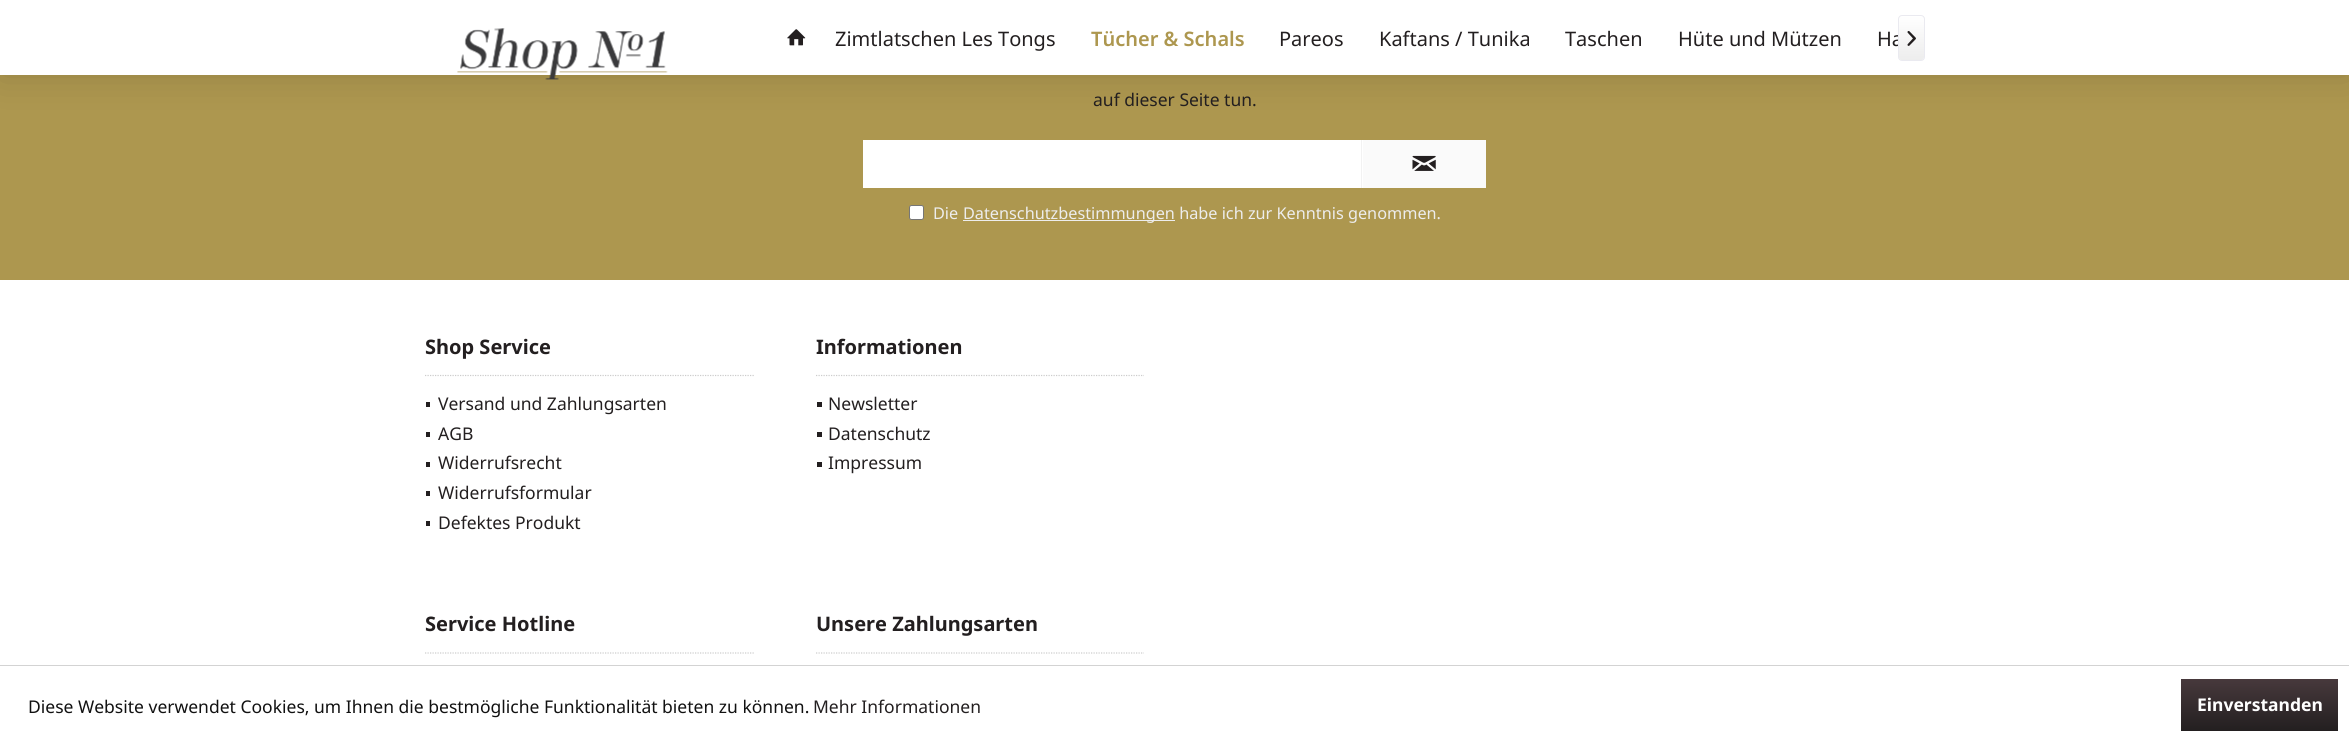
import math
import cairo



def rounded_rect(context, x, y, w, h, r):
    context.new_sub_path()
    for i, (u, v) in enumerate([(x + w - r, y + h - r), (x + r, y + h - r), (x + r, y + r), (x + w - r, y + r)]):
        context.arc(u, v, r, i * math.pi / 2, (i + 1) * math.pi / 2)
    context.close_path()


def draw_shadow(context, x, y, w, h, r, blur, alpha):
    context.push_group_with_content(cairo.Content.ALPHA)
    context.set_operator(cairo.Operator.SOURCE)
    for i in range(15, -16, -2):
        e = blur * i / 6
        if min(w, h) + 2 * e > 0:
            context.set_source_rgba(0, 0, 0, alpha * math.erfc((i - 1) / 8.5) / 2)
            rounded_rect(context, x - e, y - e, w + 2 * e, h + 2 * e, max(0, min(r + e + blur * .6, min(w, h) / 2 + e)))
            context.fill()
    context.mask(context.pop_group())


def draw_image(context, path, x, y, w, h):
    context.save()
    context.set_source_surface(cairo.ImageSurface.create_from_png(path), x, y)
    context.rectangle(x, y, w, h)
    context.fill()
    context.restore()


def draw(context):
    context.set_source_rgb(1, 1, 1)
    context.paint()
    context.set_source_rgb(173 / 255, 151 / 255, 79 / 255)
    context.rectangle(0, 75, 2349, 205)
    context.fill()
    context.set_source_rgb(0, 0, 0)
    draw_shadow(context, 0, 0, 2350, 75, 0, 19, 0.15)
    context.set_source_rgb(1, 1, 1)
    context.rectangle(0, 0, 2349, 75)
    context.fill()
    draw_image(context, "images/1.png", 457, 28, 211, 52)
    draw_image(context, "images/2.png", 787, 29, 19, 17)
    context.rectangle(863, 140, 500, 48)
    context.fill()
    context.set_source_rgb(250 / 255, 250 / 255, 250 / 255)
    context.rectangle(1363, 140, 123, 48)
    context.fill()
    context.set_source_rgb(242 / 255, 242 / 255, 242 / 255)
    context.rectangle(1361, 140, 1, 48)
    context.fill()
    draw_image(context, "images/4.png", 1412, 155, 24, 16)
    context.set_source_rgb(1, 1, 1)
    rounded_rect(context, 909.5, 205.5, 14, 14, 2)
    context.fill_preserve()
    context.set_source_rgb(118 / 255, 118 / 255, 118 / 255)
    context.set_line_width(1)
    context.stroke()
    context.set_source_rgb(237 / 255, 237 / 255, 237 / 255)
    context.rectangle(963, 220, 212, 1)
    context.fill()
    context.new_path()
    context.move_to(425, 375.5)
    context.line_to(754, 375.5)
    context.set_source_rgb(204 / 255, 204 / 255, 204 / 255)
    context.set_line_width(1.2)
    context.set_dash([1.25, 1.25])
    context.stroke()
    context.set_source_rgb(35 / 255, 31 / 255, 32 / 255)
    context.rectangle(426, 402, 4, 5)
    context.fill()
    context.rectangle(426, 432, 4, 5)
    context.fill()
    context.rectangle(426, 462, 4, 5)
    context.fill()
    context.rectangle(426, 491, 4, 5)
    context.fill()
    context.rectangle(426, 521, 4, 5)
    context.fill()
    context.new_path()
    context.move_to(816, 375.5)
    context.line_to(1144, 375.5)
    context.set_source_rgb(204 / 255, 204 / 255, 204 / 255)
    context.stroke()
    context.set_source_rgb(35 / 255, 31 / 255, 32 / 255)
    context.rectangle(817, 402, 5, 5)
    context.fill()
    context.rectangle(817, 432, 5, 5)
    context.fill()
    context.rectangle(817, 462, 5, 5)
    context.fill()
    context.new_path()
    context.move_to(425, 653)
    context.line_to(754, 653)
    context.set_source_rgb(204 / 255, 204 / 255, 204 / 255)
    context.stroke()
    context.new_path()
    context.move_to(816, 653)
    context.line_to(1144, 653)
    context.stroke()
    context.set_source_rgb(211 / 255, 211 / 255, 211 / 255)
    context.rectangle(0, 665, 2349, 1)
    context.fill()
    gradient = cairo.LinearGradient(2259, 679, 2259, 731)
    gradient.add_color_stop_rgba(0, 71 / 255, 57 / 255, 60 / 255, 1)
    gradient.add_color_stop_rgba(1, 35 / 255, 31 / 255, 32 / 255, 1)
    context.set_source(gradient)
    context.rectangle(2181, 679, 157, 52)
    context.fill()
    context.select_font_face("Noto Sans")
    context.set_font_size(20)
    context.set_source_rgb(35 / 255, 31 / 255, 32 / 255)
    context.move_to(835, 46)
    context.show_text("Zimtlatschen Les Tongs")
    context.select_font_face("Noto Sans SemiBold")
    context.set_source_rgb(173 / 255, 151 / 255, 79 / 255)
    context.move_to(1091, 46)
    context.show_text("Tücher & Schals")
    context.select_font_face("Noto Sans")
    context.set_source_rgb(35 / 255, 31 / 255, 32 / 255)
    context.move_to(1279, 46)
    context.show_text("Pareos")
    context.move_to(1379, 46)
    context.show_text("Kaftans / Tunika")
    context.move_to(1565, 46)
    context.show_text("Taschen")
    context.move_to(1678, 46)
    context.show_text("Hüte und Mützen")
    context.move_to(1877, 46)
    context.show_text("Ha")
    gradient = cairo.LinearGradient(1911, 16, 1911, 60)
    gradient.add_color_stop_rgba(0, 1, 1, 1, 1)
    gradient.add_color_stop_rgba(1, 237 / 255, 237 / 255, 237 / 255, 1)
    context.set_source(gradient)
    rounded_rect(context, 1899, 16, 25, 44, 2.5)
    context.fill()
    rounded_rect(context, 1898.5, 15.5, 26, 45, 3.5)
    context.set_source_rgb(234 / 255, 234 / 255, 240 / 255)
    context.set_line_width(1)
    context.set_dash([])
    context.stroke()
    draw_image(context, "images/3.png", 1907, 31, 9, 15)
    context.set_font_size(17.5)
    context.set_source_rgb(35 / 255, 31 / 255, 32 / 255)
    context.move_to(1093, 106)
    context.show_text("auf dieser Seite tun.")
    context.set_font_size(16.25)
    context.set_source_rgb(237 / 255, 237 / 255, 237 / 255)
    context.move_to(933, 219)
    context.show_text("Die")
    context.move_to(963, 219)
    context.show_text("Datenschutzbestimmungen habe ich zur Kenntnis genommen.")
    context.select_font_face("Noto Sans", cairo.FontSlant.NORMAL, cairo.FontWeight.BOLD)
    context.set_font_size(20)
    context.set_source_rgb(35 / 255, 31 / 255, 32 / 255)
    context.move_to(425, 354)
    context.show_text("Shop Service")
    context.select_font_face("Noto Sans")
    context.set_font_size(17.5)
    context.move_to(438, 410)
    context.show_text("Versand und Zahlungsarten")
    context.move_to(438, 440)
    context.show_text("AGB")
    context.move_to(438, 469)
    context.show_text("Widerrufsrecht")
    context.move_to(438, 499)
    context.show_text("Widerrufsformular")
    context.move_to(438, 529)
    context.show_text("Defektes Produkt")
    context.select_font_face("Noto Sans", cairo.FontSlant.NORMAL, cairo.FontWeight.BOLD)
    context.set_font_size(20)
    context.move_to(816, 354)
    context.show_text("Informationen")
    context.select_font_face("Noto Sans")
    context.set_font_size(17.5)
    context.move_to(828, 410)
    context.show_text("Newsletter")
    context.move_to(828, 440)
    context.show_text("Datenschutz")
    context.move_to(828, 469)
    context.show_text("Impressum")
    context.select_font_face("Noto Sans", cairo.FontSlant.NORMAL, cairo.FontWeight.BOLD)
    context.set_font_size(20)
    context.move_to(425, 631)
    context.show_text("Service Hotline")
    context.move_to(816, 631)
    context.show_text("Unsere Zahlungsarten")
    context.select_font_face("Noto Sans")
    context.set_font_size(17.5)
    context.set_source_rgb(17 / 255, 17 / 255, 17 / 255)
    context.move_to(28, 713)
    context.show_text("Diese Website verwendet Cookies, um Ihnen die bestmögliche Funktionalität bieten zu können.")
    context.set_source_rgb(35 / 255, 31 / 255, 32 / 255)
    context.move_to(813, 713)
    context.show_text("Mehr Informationen")
    context.select_font_face("Noto Sans", cairo.FontSlant.NORMAL, cairo.FontWeight.BOLD)
    context.set_source_rgb(1, 1, 1)
    context.move_to(2197, 711)
    context.show_text("Einverstanden")


surface = cairo.ImageSurface(cairo.Format.RGB24, 2349, 744)
context = cairo.Context(surface)
options = cairo.FontOptions()
options.set_hint_metrics(cairo.HintMetrics.OFF)
options.set_hint_style(cairo.HintStyle.NONE)
context.set_font_options(options)
context.set_miter_limit(4)
draw(context)
surface.write_to_png("out.png")
